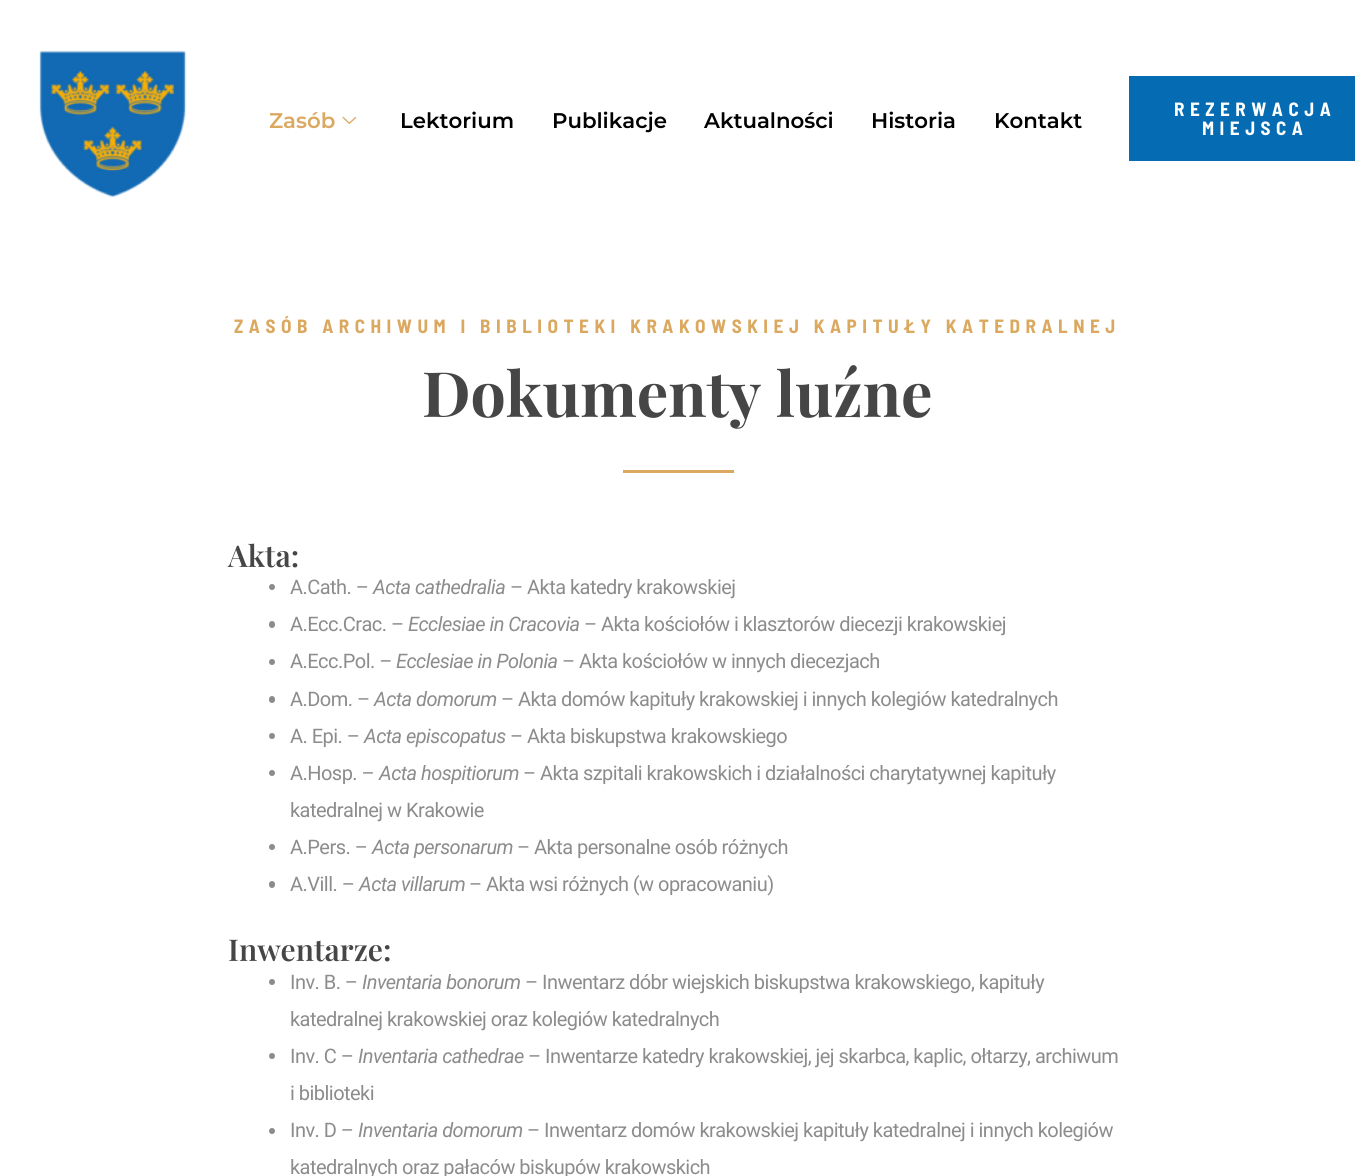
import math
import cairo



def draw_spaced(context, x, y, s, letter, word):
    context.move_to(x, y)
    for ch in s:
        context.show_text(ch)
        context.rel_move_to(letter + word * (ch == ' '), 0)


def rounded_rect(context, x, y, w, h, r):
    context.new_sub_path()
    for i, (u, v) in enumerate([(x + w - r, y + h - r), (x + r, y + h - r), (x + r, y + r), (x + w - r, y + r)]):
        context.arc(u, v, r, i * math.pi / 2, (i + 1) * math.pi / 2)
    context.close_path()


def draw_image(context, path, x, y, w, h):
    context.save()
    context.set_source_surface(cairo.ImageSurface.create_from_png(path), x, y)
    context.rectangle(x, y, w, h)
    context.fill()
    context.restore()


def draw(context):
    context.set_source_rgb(1, 1, 1)
    context.paint()
    draw_image(context, "images/1.png", 39, 50, 148, 148)
    draw_image(context, "images/2.png", 342, 116, 15, 8)
    context.set_source_rgb(5 / 255, 108 / 255, 179 / 255)
    context.rectangle(1129, 76, 226, 85)
    context.fill()
    context.set_source_rgb(219 / 255, 168 / 255, 96 / 255)
    context.rectangle(623, 470, 111, 3)
    context.fill()
    context.set_source_rgb(140 / 255, 140 / 255, 140 / 255)
    context.arc(272, 587, 3, 0, 2 * math.pi)
    context.fill()
    rounded_rect(context, 269, 621, 6, 7, 3)
    context.fill()
    context.arc(272, 662, 3, 0, 2 * math.pi)
    context.fill()
    rounded_rect(context, 269, 696, 6, 7, 3)
    context.fill()
    context.arc(272, 736, 3, 0, 2 * math.pi)
    context.fill()
    context.arc(272, 773, 3, 0, 2 * math.pi)
    context.fill()
    context.arc(272, 847, 3, 0, 2 * math.pi)
    context.fill()
    rounded_rect(context, 269, 881, 6, 7, 3)
    context.fill()
    context.arc(272, 982, 3, 0, 2 * math.pi)
    context.fill()
    context.arc(272, 1056, 3, 0, 2 * math.pi)
    context.fill()
    context.arc(272, 1131, 3, 0, 2 * math.pi)
    context.fill()
    context.select_font_face("Montserrat SemiBold")
    context.set_font_size(21.25)
    context.set_source_rgb(219 / 255, 168 / 255, 96 / 255)
    context.move_to(269, 128)
    context.show_text("Zasób")
    context.set_source_rgb(0, 0, 0)
    context.move_to(400, 128)
    context.show_text("Lektorium")
    context.move_to(552, 128)
    context.show_text("Publikacje")
    context.move_to(704, 128)
    context.show_text("Aktualności")
    context.move_to(871, 128)
    context.show_text("Historia")
    context.move_to(994, 128)
    context.show_text("Kontakt")
    context.select_font_face("Barlow Semi Condensed", cairo.FontSlant.NORMAL, cairo.FontWeight.BOLD)
    context.set_font_size(19.2)
    context.set_source_rgb(1, 1, 1)
    draw_spaced(context, 1174, 116, "REZERWACJA", 5.5, 0)
    draw_spaced(context, 1202, 135, "MIEJSCA", 5.5, 0)
    context.set_source_rgb(219 / 255, 168 / 255, 96 / 255)
    draw_spaced(context, 234, 333, "ZASÓB ARCHIWUM I BIBLIOTEKI KRAKOWSKIEJ KAPITUŁY KATEDRALNEJ", 5.5, 0)
    context.select_font_face("Playfair Display", cairo.FontSlant.NORMAL, cairo.FontWeight.BOLD)
    context.set_font_size(62.5)
    context.set_source_rgb(70 / 255, 70 / 255, 70 / 255)
    context.move_to(422, 417)
    context.show_text("Dokumenty luźne")
    context.select_font_face("Playfair Display SemiBold")
    context.set_font_size(30)
    context.move_to(228, 567)
    context.show_text("Akta:")
    context.select_font_face("Roboto")
    context.set_font_size(20)
    context.set_source_rgb(140 / 255, 140 / 255, 140 / 255)
    draw_spaced(context, 290, 594, "A.Cath. –", -0.53, 0)
    context.select_font_face("Roboto", cairo.FontSlant.ITALIC)
    draw_spaced(context, 373, 594, "Acta cathedralia", -0.53, 0)
    context.select_font_face("Roboto")
    draw_spaced(context, 510, 594, "– Akta katedry krakowskiej", -0.53, 0)
    draw_spaced(context, 290, 631, "A.Ecc.Crac. –", -0.53, 0)
    context.select_font_face("Roboto", cairo.FontSlant.ITALIC)
    draw_spaced(context, 408, 631, "Ecclesiae in Cracovia", -0.53, 0)
    context.select_font_face("Roboto")
    draw_spaced(context, 584, 631, "– Akta kościołów i klasztorów diecezji krakowskiej", -0.53, 0)
    draw_spaced(context, 290, 668, "A.Ecc.Pol. –", -0.53, 0)
    context.select_font_face("Roboto", cairo.FontSlant.ITALIC)
    draw_spaced(context, 396, 668, "Ecclesiae in Polonia", -0.53, 0)
    context.select_font_face("Roboto")
    draw_spaced(context, 562, 668, "– Akta kościołów w innych diecezjach", -0.53, 0)
    draw_spaced(context, 290, 706, "A.Dom. –", -0.53, 0)
    context.select_font_face("Roboto", cairo.FontSlant.ITALIC)
    draw_spaced(context, 374, 706, "Acta domorum", -0.53, 0)
    context.select_font_face("Roboto")
    draw_spaced(context, 501, 706, "– Akta domów kapituły krakowskiej i innych kolegiów katedralnych", -0.53, 0)
    draw_spaced(context, 290, 743, "A. Epi. –", -0.53, 0)
    context.select_font_face("Roboto", cairo.FontSlant.ITALIC)
    draw_spaced(context, 364, 743, "Acta episcopatus", -0.53, 0)
    context.select_font_face("Roboto")
    draw_spaced(context, 510, 743, "– Akta biskupstwa krakowskiego", -0.53, 0)
    draw_spaced(context, 290, 780, "A.Hosp. –", -0.53, 0)
    context.select_font_face("Roboto", cairo.FontSlant.ITALIC)
    draw_spaced(context, 379, 780, "Acta hospitiorum", -0.53, 0)
    context.select_font_face("Roboto")
    draw_spaced(context, 523, 780, "– Akta szpitali krakowskich i działalności charytatywnej kapituły", -0.53, 0)
    draw_spaced(context, 290, 817, "katedralnej w Krakowie", -0.53, 0)
    draw_spaced(context, 290, 854, "A.Pers. –", -0.53, 0)
    context.select_font_face("Roboto", cairo.FontSlant.ITALIC)
    draw_spaced(context, 372, 854, "Acta personarum", -0.53, 0)
    context.select_font_face("Roboto")
    draw_spaced(context, 517, 854, "– Akta personalne osób różnych", -0.53, 0)
    draw_spaced(context, 290, 891, "A.Vill. –", -0.53, 0)
    context.select_font_face("Roboto", cairo.FontSlant.ITALIC)
    draw_spaced(context, 359, 891, "Acta villarum", -0.53, 0)
    context.select_font_face("Roboto")
    draw_spaced(context, 469, 891, "– Akta wsi różnych (w opracowaniu)", -0.53, 0)
    context.select_font_face("Playfair Display SemiBold")
    context.set_font_size(30)
    context.set_source_rgb(70 / 255, 70 / 255, 70 / 255)
    context.move_to(228, 961)
    context.show_text("Inwentarze:")
    context.select_font_face("Roboto")
    context.set_font_size(20)
    context.set_source_rgb(140 / 255, 140 / 255, 140 / 255)
    draw_spaced(context, 290, 989, "Inv. B. –", -0.53, 0)
    context.select_font_face("Roboto", cairo.FontSlant.ITALIC)
    draw_spaced(context, 362, 989, "Inventaria bonorum", -0.53, 0)
    context.select_font_face("Roboto")
    draw_spaced(context, 525, 989, "– Inwentarz dóbr wiejskich biskupstwa krakowskiego, kapituły", -0.53, 0)
    draw_spaced(context, 290, 1026, "katedralnej krakowskiej oraz kolegiów katedralnych", -0.53, 0)
    draw_spaced(context, 290, 1063, "Inv. C –", -0.53, 0)
    context.select_font_face("Roboto", cairo.FontSlant.ITALIC)
    draw_spaced(context, 358, 1063, "Inventaria cathedrae", -0.53, 0)
    context.select_font_face("Roboto")
    draw_spaced(context, 528, 1063, "– Inwentarze katedry krakowskiej, jej skarbca, kaplic, ołtarzy, archiwum", -0.53, 0)
    draw_spaced(context, 290, 1100, "i biblioteki", -0.53, 0)
    draw_spaced(context, 290, 1137, "Inv. D –", -0.53, 0)
    context.select_font_face("Roboto", cairo.FontSlant.ITALIC)
    draw_spaced(context, 358, 1137, "Inventaria domorum", -0.53, 0)
    context.select_font_face("Roboto")
    draw_spaced(context, 527, 1137, "– Inwentarz domów krakowskiej kapituły katedralnej i innych kolegiów", -0.53, 0)
    draw_spaced(context, 290, 1174, "katedralnych oraz pałaców biskupów krakowskich", -0.53, 0)


surface = cairo.ImageSurface(cairo.Format.RGB24, 1355, 1176)
context = cairo.Context(surface)
options = cairo.FontOptions()
options.set_hint_metrics(cairo.HintMetrics.OFF)
options.set_hint_style(cairo.HintStyle.NONE)
context.set_font_options(options)
context.set_miter_limit(4)
draw(context)
surface.write_to_png("out.png")
